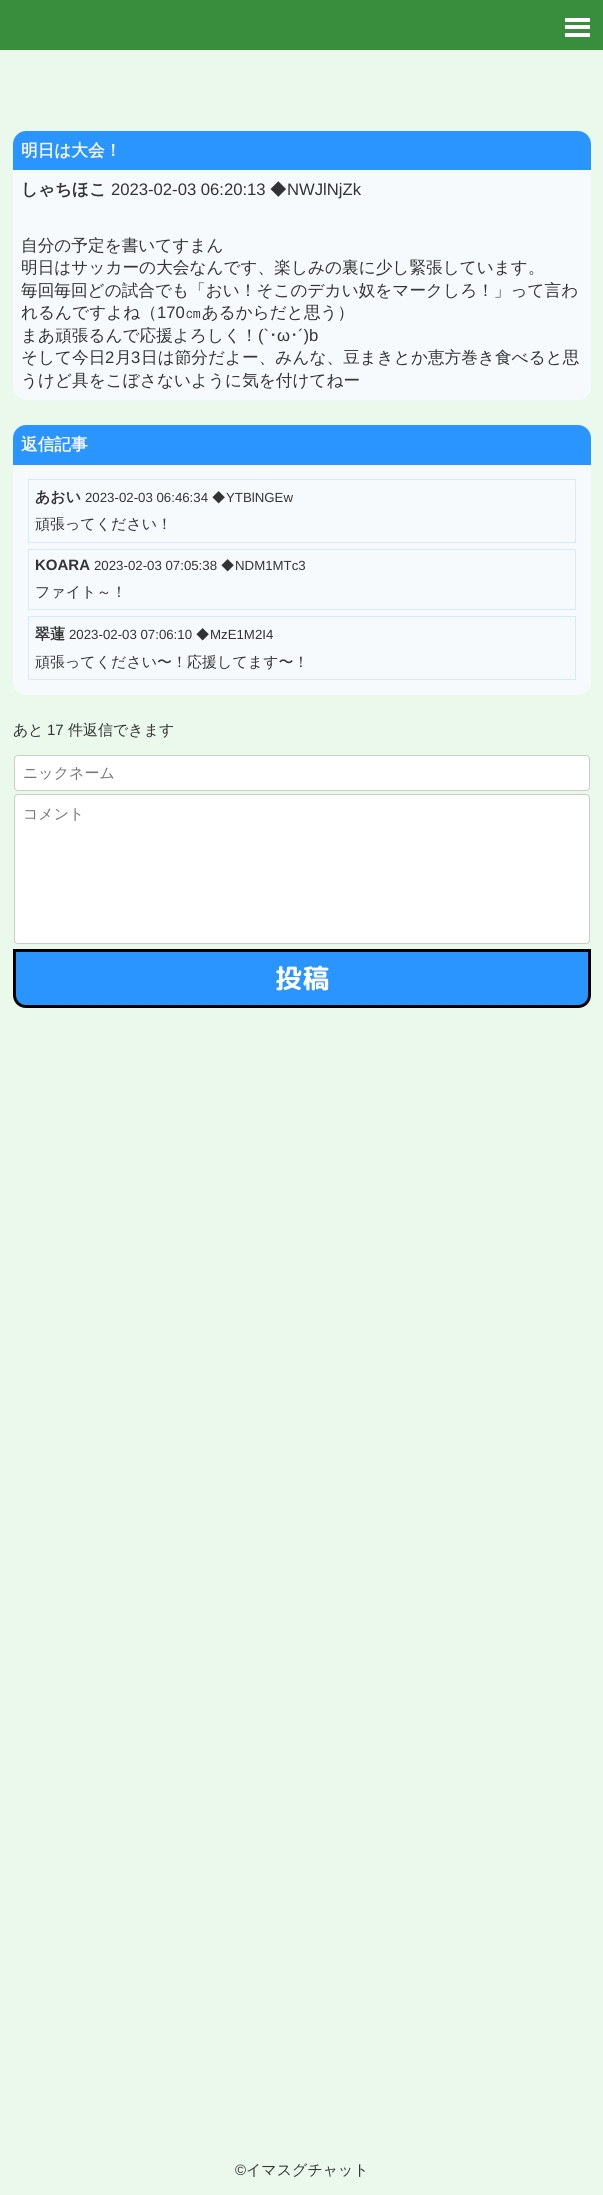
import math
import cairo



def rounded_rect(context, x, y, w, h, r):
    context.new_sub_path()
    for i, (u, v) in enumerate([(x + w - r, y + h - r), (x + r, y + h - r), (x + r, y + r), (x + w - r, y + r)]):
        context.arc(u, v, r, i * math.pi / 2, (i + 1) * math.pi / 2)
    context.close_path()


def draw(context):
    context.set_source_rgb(234 / 255, 249 / 255, 235 / 255)
    context.paint()
    context.set_source_rgb(56 / 255, 142 / 255, 60 / 255)
    context.rectangle(0, 0, 603, 50)
    context.fill()
    context.set_source_rgb(1, 1, 1)
    context.rectangle(565, 18, 25, 4)
    context.fill()
    context.rectangle(565, 25, 25, 4)
    context.fill()
    context.rectangle(565, 33, 25, 4)
    context.fill()
    context.set_source_rgb(43 / 255, 149 / 255, 1)
    context.new_path()
    context.move_to(26, 131)
    context.line_to(578, 131)
    context.curve_to(585, 131, 591, 137, 591, 144)
    context.line_to(591, 170)
    context.line_to(13, 170)
    context.line_to(13, 144)
    context.curve_to(13, 137, 19, 131, 26, 131)
    context.close_path()
    context.fill()
    context.set_source_rgb(247 / 255, 250 / 255, 253 / 255)
    context.rectangle(13, 170, 578, 56)
    context.fill()
    context.new_path()
    context.move_to(13, 226)
    context.line_to(591, 226)
    context.line_to(591, 387)
    context.curve_to(591, 394, 585, 400, 578, 400)
    context.line_to(26, 400)
    context.curve_to(19, 400, 13, 394, 13, 387)
    context.close_path()
    context.fill()
    context.set_source_rgb(43 / 255, 149 / 255, 1)
    context.new_path()
    context.move_to(26, 425)
    context.line_to(578, 425)
    context.curve_to(585, 425, 591, 431, 591, 438)
    context.line_to(591, 465)
    context.line_to(13, 465)
    context.line_to(13, 438)
    context.curve_to(13, 431, 19, 425, 26, 425)
    context.close_path()
    context.fill()
    context.set_source_rgb(247 / 255, 250 / 255, 253 / 255)
    context.new_path()
    context.move_to(13, 465)
    context.line_to(591, 465)
    context.line_to(591, 682)
    context.curve_to(591, 689, 585, 695, 578, 695)
    context.line_to(26, 695)
    context.curve_to(19, 695, 13, 689, 13, 682)
    context.close_path()
    context.fill()
    context.rectangle(28.5, 479.5, 547, 63)
    context.set_source_rgb(213 / 255, 234 / 255, 1)
    context.set_line_width(1)
    context.stroke()
    context.rectangle(28.5, 549.5, 547, 60)
    context.stroke()
    context.rectangle(28.5, 616.5, 547, 63)
    context.stroke()
    context.set_source_rgb(1, 1, 1)
    rounded_rect(context, 14.5, 755.5, 575, 35, 3.5)
    context.fill_preserve()
    context.set_source_rgb(204 / 255, 204 / 255, 204 / 255)
    context.stroke()
    context.set_source_rgb(1, 1, 1)
    rounded_rect(context, 14.5, 794.5, 575, 149, 3.5)
    context.fill_preserve()
    context.set_source_rgb(204 / 255, 204 / 255, 204 / 255)
    context.stroke()
    context.set_source_rgb(43 / 255, 149 / 255, 1)
    context.new_path()
    context.move_to(14.5, 950.5)
    context.line_to(589.5, 950.5)
    context.line_to(589.5, 995)
    context.curve_to(589.5, 1001.5, 584.5, 1006.5, 578, 1006.5)
    context.line_to(26, 1006.5)
    context.curve_to(19.5, 1006.5, 14.5, 1001.5, 14.5, 995)
    context.close_path()
    context.fill_preserve()
    context.set_source_rgb(0, 0, 0)
    context.set_line_width(3)
    context.stroke()
    context.select_font_face("WenQuanYi Zen Hei", cairo.FontSlant.NORMAL, cairo.FontWeight.BOLD)
    context.set_font_size(16.65)
    context.set_source_rgb(248 / 255, 248 / 255, 248 / 255)
    context.move_to(21, 156)
    context.show_text("明日は大会！")
    context.set_source_rgb(51 / 255, 51 / 255, 51 / 255)
    context.move_to(21, 195)
    context.show_text("しゃちほこ")
    context.select_font_face("Liberation Sans")
    context.move_to(111, 195)
    context.show_text("2023-02-03 06:20:13")
    context.select_font_face("WenQuanYi Zen Hei Medium")
    context.move_to(270, 195)
    context.show_text("◆")
    context.select_font_face("Liberation Sans")
    context.move_to(287, 195)
    context.show_text("NWJlNjZk")
    context.select_font_face("WenQuanYi Zen Hei Medium")
    context.move_to(21, 251)
    context.show_text("自分の予定を書いてすまん")
    context.move_to(21, 273)
    context.show_text("明日はサッカーの大会なんです、楽しみの裏に少し緊張しています。")
    context.move_to(21, 296)
    context.show_text("毎回毎回どの試合でも「おい！そこのデカい奴をマークしろ！」って言わ")
    context.move_to(21, 318)
    context.show_text("れるんですよね（")
    context.select_font_face("Liberation Sans")
    context.move_to(157, 318)
    context.show_text("170")
    context.select_font_face("WenQuanYi Zen Hei Medium")
    context.move_to(185, 318)
    context.show_text("㎝あるからだと思う）")
    context.move_to(21, 341)
    context.show_text("まあ頑張るんで応援よろしく！")
    context.select_font_face("Liberation Sans")
    context.move_to(258, 341)
    context.show_text("(`")
    context.select_font_face("IPAPGothic")
    context.move_to(269, 341)
    context.show_text("･")
    context.select_font_face("Liberation Sans")
    context.move_to(277, 341)
    context.show_text("ω")
    context.select_font_face("IPAPGothic")
    context.move_to(290, 341)
    context.show_text("･")
    context.select_font_face("Liberation Sans")
    context.move_to(298, 341)
    context.show_text("´)b")
    context.select_font_face("WenQuanYi Zen Hei Medium")
    context.move_to(21, 363)
    context.show_text("そして今日")
    context.select_font_face("Liberation Sans")
    context.move_to(105, 363)
    context.show_text("2")
    context.select_font_face("WenQuanYi Zen Hei Medium")
    context.move_to(115, 363)
    context.show_text("月")
    context.select_font_face("Liberation Sans")
    context.move_to(131, 363)
    context.show_text("3")
    context.select_font_face("WenQuanYi Zen Hei Medium")
    context.move_to(141, 363)
    context.show_text("日は節分だよー、みんな、豆まきとか恵方巻き食べると思")
    context.move_to(21, 386)
    context.show_text("うけど具をこぼさないように気を付けてねー")
    context.select_font_face("WenQuanYi Zen Hei", cairo.FontSlant.NORMAL, cairo.FontWeight.BOLD)
    context.set_source_rgb(248 / 255, 248 / 255, 248 / 255)
    context.move_to(21, 450)
    context.show_text("返信記事")
    context.set_font_size(15)
    context.set_source_rgb(51 / 255, 51 / 255, 51 / 255)
    context.move_to(35, 502)
    context.show_text("あおい")
    context.select_font_face("Liberation Sans")
    context.set_font_size(13.25)
    context.move_to(85, 502)
    context.show_text("2023-02-03 06:46:34")
    context.select_font_face("WenQuanYi Zen Hei Medium")
    context.move_to(212, 502)
    context.show_text("◆")
    context.select_font_face("Liberation Sans")
    context.move_to(226, 502)
    context.show_text("YTBlNGEw")
    context.select_font_face("WenQuanYi Zen Hei Medium")
    context.set_font_size(15)
    context.move_to(35, 529)
    context.show_text("頑張ってください！")
    context.select_font_face("Liberation Sans", cairo.FontSlant.NORMAL, cairo.FontWeight.BOLD)
    context.move_to(35, 570)
    context.show_text("KOARA")
    context.select_font_face("Liberation Sans")
    context.set_font_size(13.25)
    context.move_to(94, 570)
    context.show_text("2023-02-03 07:05:38")
    context.select_font_face("WenQuanYi Zen Hei Medium")
    context.move_to(221, 570)
    context.show_text("◆")
    context.select_font_face("Liberation Sans")
    context.move_to(235, 570)
    context.show_text("NDM1MTc3")
    context.select_font_face("WenQuanYi Zen Hei Medium")
    context.set_font_size(15)
    context.move_to(35, 597)
    context.show_text("ファイト～！")
    context.select_font_face("WenQuanYi Zen Hei", cairo.FontSlant.NORMAL, cairo.FontWeight.BOLD)
    context.move_to(35, 639)
    context.show_text("翠蓮")
    context.select_font_face("Liberation Sans")
    context.set_font_size(13.25)
    context.move_to(69, 639)
    context.show_text("2023-02-03 07:06:10")
    context.select_font_face("WenQuanYi Zen Hei Medium")
    context.move_to(196, 639)
    context.show_text("◆")
    context.select_font_face("Liberation Sans")
    context.move_to(210, 639)
    context.show_text("MzE1M2I4")
    context.select_font_face("WenQuanYi Zen Hei Medium")
    context.set_font_size(15)
    context.move_to(35, 667)
    context.show_text("頑張ってください〜！応援してます〜！")
    context.move_to(13, 735)
    context.show_text("あと")
    context.select_font_face("Liberation Sans")
    context.move_to(47, 735)
    context.show_text("17")
    context.select_font_face("WenQuanYi Zen Hei Medium")
    context.move_to(68, 735)
    context.show_text("件返信できます")
    context.set_source_rgb(117 / 255, 117 / 255, 117 / 255)
    context.move_to(23, 778)
    context.show_text("ニックネーム")
    context.move_to(23, 819)
    context.show_text("コメント")
    context.select_font_face("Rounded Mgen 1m", cairo.FontSlant.NORMAL, cairo.FontWeight.BOLD)
    context.set_font_size(27)
    context.set_source_rgb(1, 1, 1)
    context.move_to(275, 988)
    context.show_text("投稿")
    context.select_font_face("Liberation Sans")
    context.set_font_size(15)
    context.set_source_rgb(51 / 255, 51 / 255, 51 / 255)
    context.move_to(235, 2175)
    context.show_text("©")
    context.select_font_face("WenQuanYi Zen Hei Medium")
    context.move_to(246, 2175)
    context.show_text("イマスグチャット")


surface = cairo.ImageSurface(cairo.Format.RGB24, 603, 2195)
context = cairo.Context(surface)
options = cairo.FontOptions()
options.set_hint_metrics(cairo.HintMetrics.OFF)
options.set_hint_style(cairo.HintStyle.NONE)
context.set_font_options(options)
context.set_miter_limit(4)
draw(context)
surface.write_to_png("out.png")
